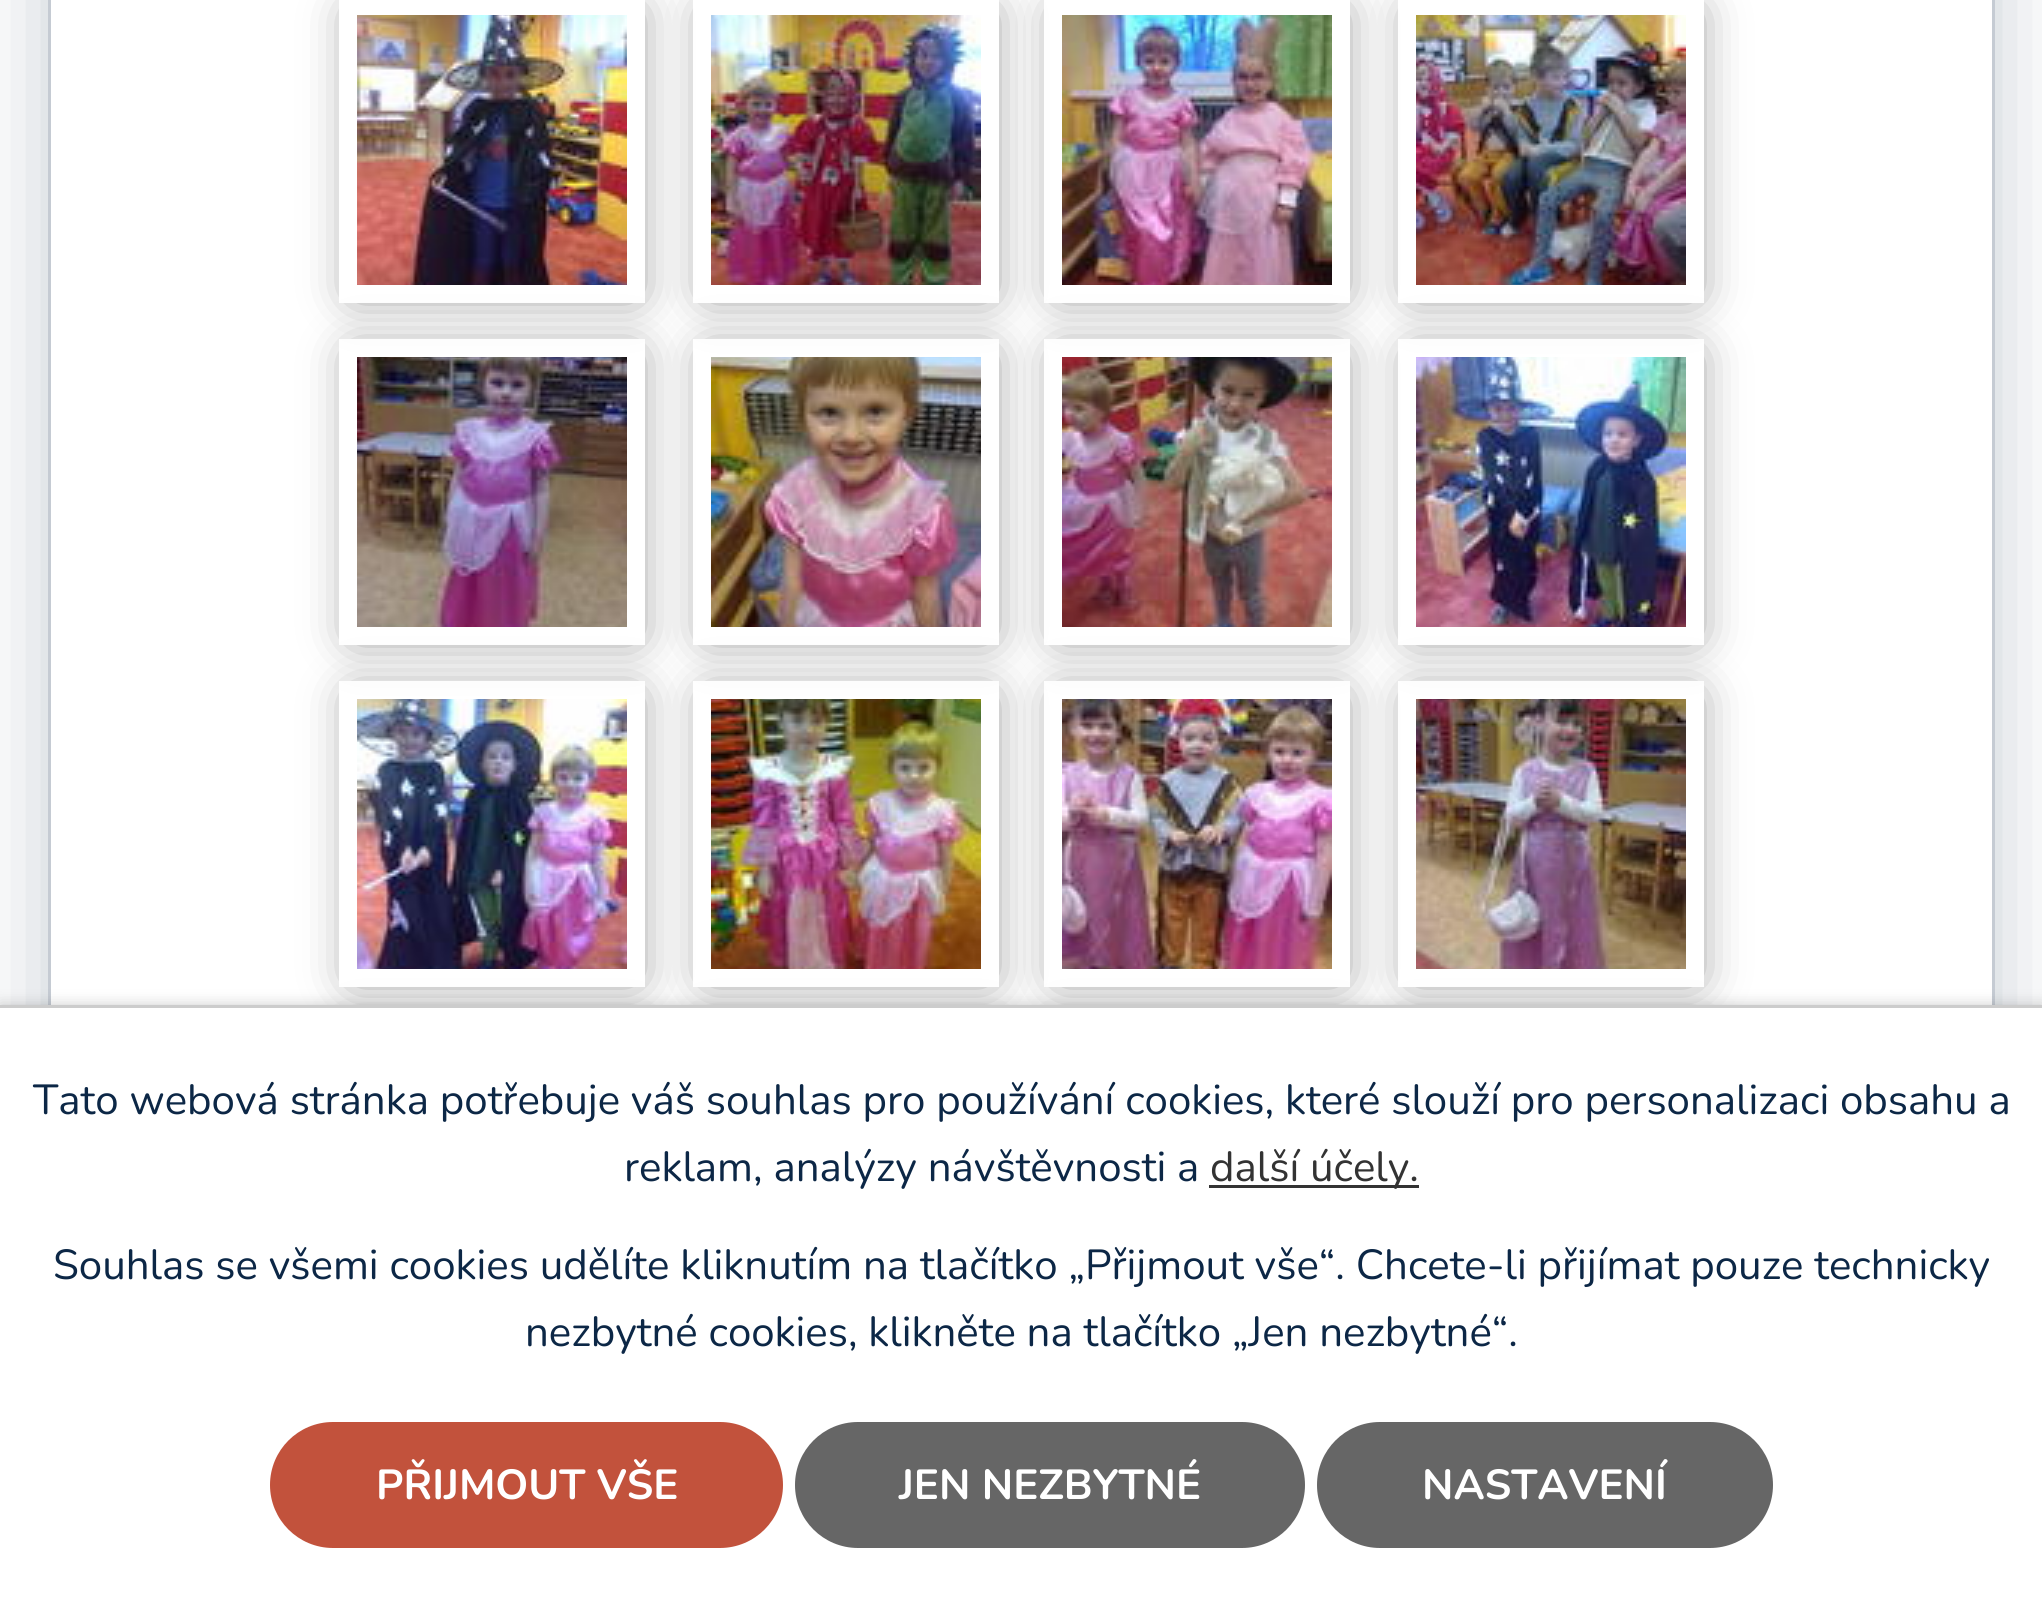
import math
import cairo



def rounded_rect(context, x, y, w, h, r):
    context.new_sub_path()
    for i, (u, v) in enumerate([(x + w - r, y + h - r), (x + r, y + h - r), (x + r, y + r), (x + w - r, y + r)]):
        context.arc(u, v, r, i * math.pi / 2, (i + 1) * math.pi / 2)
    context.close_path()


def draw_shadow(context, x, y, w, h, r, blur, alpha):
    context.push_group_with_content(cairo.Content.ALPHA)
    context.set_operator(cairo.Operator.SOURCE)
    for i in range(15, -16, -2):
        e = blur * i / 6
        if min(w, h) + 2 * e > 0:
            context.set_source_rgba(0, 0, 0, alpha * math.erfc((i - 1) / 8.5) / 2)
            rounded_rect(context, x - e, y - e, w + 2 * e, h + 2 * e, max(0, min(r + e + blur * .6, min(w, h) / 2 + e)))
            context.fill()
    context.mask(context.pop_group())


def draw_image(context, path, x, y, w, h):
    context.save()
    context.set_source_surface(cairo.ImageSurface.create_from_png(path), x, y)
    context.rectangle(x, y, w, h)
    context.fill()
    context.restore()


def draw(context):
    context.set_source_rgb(1, 1, 1)
    context.paint()
    context.save()
    context.set_fill_rule(cairo.FillRule.EVEN_ODD)
    context.new_path()
    context.move_to(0, 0)
    context.line_to(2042, 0)
    context.line_to(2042, 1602)
    context.line_to(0, 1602)
    context.close_path()
    context.move_to(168, -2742)
    context.line_to(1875, -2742)
    context.curve_to(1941.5, -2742, 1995, -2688.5, 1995, -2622)
    context.line_to(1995, 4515)
    context.curve_to(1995, 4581.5, 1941.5, 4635, 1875, 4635)
    context.line_to(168, 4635)
    context.curve_to(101.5, 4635, 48, 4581.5, 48, 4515)
    context.line_to(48, -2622)
    context.curve_to(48, -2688.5, 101.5, -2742, 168, -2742)
    context.close_path()
    context.clip()
    context.set_source_rgb(12 / 255, 39 / 255, 70 / 255)
    draw_shadow(context, 48, -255, 1947, 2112, 120, 45, 0.24)
    context.restore()
    context.rectangle(49.5, -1.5, 1944, 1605)
    context.set_source_rgb(197 / 255, 203 / 255, 211 / 255)
    context.set_line_width(3)
    context.stroke()
    context.save()
    context.set_fill_rule(cairo.FillRule.EVEN_ODD)
    context.new_path()
    context.move_to(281, 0)
    context.line_to(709, 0)
    context.line_to(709, 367)
    context.line_to(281, 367)
    context.close_path()
    context.move_to(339, -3)
    context.line_to(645, -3)
    context.line_to(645, 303)
    context.line_to(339, 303)
    context.close_path()
    context.clip()
    context.set_source_rgb(136 / 255, 136 / 255, 136 / 255)
    draw_shadow(context, 354, 12, 282, 282, 0, 24, 1)
    context.restore()
    draw_image(context, "images/1.png", 357, 15, 270, 270)
    context.save()
    context.set_fill_rule(cairo.FillRule.EVEN_ODD)
    context.new_path()
    context.move_to(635, 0)
    context.line_to(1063, 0)
    context.line_to(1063, 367)
    context.line_to(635, 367)
    context.close_path()
    context.move_to(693, -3)
    context.line_to(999, -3)
    context.line_to(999, 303)
    context.line_to(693, 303)
    context.close_path()
    context.clip()
    context.set_source_rgb(136 / 255, 136 / 255, 136 / 255)
    draw_shadow(context, 708, 12, 282, 282, 0, 24, 1)
    context.restore()
    draw_image(context, "images/2.png", 711, 15, 270, 270)
    context.save()
    context.set_fill_rule(cairo.FillRule.EVEN_ODD)
    context.new_path()
    context.move_to(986, 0)
    context.line_to(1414, 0)
    context.line_to(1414, 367)
    context.line_to(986, 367)
    context.close_path()
    context.move_to(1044, -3)
    context.line_to(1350, -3)
    context.line_to(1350, 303)
    context.line_to(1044, 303)
    context.close_path()
    context.clip()
    context.set_source_rgb(136 / 255, 136 / 255, 136 / 255)
    draw_shadow(context, 1059, 12, 282, 282, 0, 24, 1)
    context.restore()
    draw_image(context, "images/3.png", 1062, 15, 270, 270)
    context.save()
    context.set_fill_rule(cairo.FillRule.EVEN_ODD)
    context.new_path()
    context.move_to(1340, 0)
    context.line_to(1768, 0)
    context.line_to(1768, 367)
    context.line_to(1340, 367)
    context.close_path()
    context.move_to(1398, -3)
    context.line_to(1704, -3)
    context.line_to(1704, 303)
    context.line_to(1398, 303)
    context.close_path()
    context.clip()
    context.set_source_rgb(136 / 255, 136 / 255, 136 / 255)
    draw_shadow(context, 1413, 12, 282, 282, 0, 24, 1)
    context.restore()
    draw_image(context, "images/4.png", 1416, 15, 270, 270)
    context.save()
    context.set_fill_rule(cairo.FillRule.EVEN_ODD)
    context.new_path()
    context.move_to(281, 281)
    context.line_to(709, 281)
    context.line_to(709, 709)
    context.line_to(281, 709)
    context.close_path()
    context.move_to(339, 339)
    context.line_to(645, 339)
    context.line_to(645, 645)
    context.line_to(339, 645)
    context.close_path()
    context.clip()
    context.set_source_rgb(136 / 255, 136 / 255, 136 / 255)
    draw_shadow(context, 354, 354, 282, 282, 0, 24, 1)
    context.restore()
    draw_image(context, "images/5.png", 357, 357, 270, 270)
    context.save()
    context.set_fill_rule(cairo.FillRule.EVEN_ODD)
    context.new_path()
    context.move_to(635, 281)
    context.line_to(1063, 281)
    context.line_to(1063, 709)
    context.line_to(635, 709)
    context.close_path()
    context.move_to(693, 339)
    context.line_to(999, 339)
    context.line_to(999, 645)
    context.line_to(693, 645)
    context.close_path()
    context.clip()
    context.set_source_rgb(136 / 255, 136 / 255, 136 / 255)
    draw_shadow(context, 708, 354, 282, 282, 0, 24, 1)
    context.restore()
    draw_image(context, "images/6.png", 711, 357, 270, 270)
    context.save()
    context.set_fill_rule(cairo.FillRule.EVEN_ODD)
    context.new_path()
    context.move_to(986, 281)
    context.line_to(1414, 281)
    context.line_to(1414, 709)
    context.line_to(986, 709)
    context.close_path()
    context.move_to(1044, 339)
    context.line_to(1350, 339)
    context.line_to(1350, 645)
    context.line_to(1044, 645)
    context.close_path()
    context.clip()
    context.set_source_rgb(136 / 255, 136 / 255, 136 / 255)
    draw_shadow(context, 1059, 354, 282, 282, 0, 24, 1)
    context.restore()
    draw_image(context, "images/7.png", 1062, 357, 270, 270)
    context.save()
    context.set_fill_rule(cairo.FillRule.EVEN_ODD)
    context.new_path()
    context.move_to(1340, 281)
    context.line_to(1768, 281)
    context.line_to(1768, 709)
    context.line_to(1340, 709)
    context.close_path()
    context.move_to(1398, 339)
    context.line_to(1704, 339)
    context.line_to(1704, 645)
    context.line_to(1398, 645)
    context.close_path()
    context.clip()
    context.set_source_rgb(136 / 255, 136 / 255, 136 / 255)
    draw_shadow(context, 1413, 354, 282, 282, 0, 24, 1)
    context.restore()
    draw_image(context, "images/8.png", 1416, 357, 270, 270)
    context.save()
    context.set_fill_rule(cairo.FillRule.EVEN_ODD)
    context.new_path()
    context.move_to(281, 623)
    context.line_to(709, 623)
    context.line_to(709, 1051)
    context.line_to(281, 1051)
    context.close_path()
    context.move_to(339, 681)
    context.line_to(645, 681)
    context.line_to(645, 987)
    context.line_to(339, 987)
    context.close_path()
    context.clip()
    context.set_source_rgb(136 / 255, 136 / 255, 136 / 255)
    draw_shadow(context, 354, 696, 282, 282, 0, 24, 1)
    context.restore()
    draw_image(context, "images/9.png", 357, 699, 270, 270)
    context.save()
    context.set_fill_rule(cairo.FillRule.EVEN_ODD)
    context.new_path()
    context.move_to(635, 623)
    context.line_to(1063, 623)
    context.line_to(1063, 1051)
    context.line_to(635, 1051)
    context.close_path()
    context.move_to(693, 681)
    context.line_to(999, 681)
    context.line_to(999, 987)
    context.line_to(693, 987)
    context.close_path()
    context.clip()
    context.set_source_rgb(136 / 255, 136 / 255, 136 / 255)
    draw_shadow(context, 708, 696, 282, 282, 0, 24, 1)
    context.restore()
    draw_image(context, "images/10.png", 711, 699, 270, 270)
    context.save()
    context.set_fill_rule(cairo.FillRule.EVEN_ODD)
    context.new_path()
    context.move_to(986, 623)
    context.line_to(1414, 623)
    context.line_to(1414, 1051)
    context.line_to(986, 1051)
    context.close_path()
    context.move_to(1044, 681)
    context.line_to(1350, 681)
    context.line_to(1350, 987)
    context.line_to(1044, 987)
    context.close_path()
    context.clip()
    context.set_source_rgb(136 / 255, 136 / 255, 136 / 255)
    draw_shadow(context, 1059, 696, 282, 282, 0, 24, 1)
    context.restore()
    draw_image(context, "images/11.png", 1062, 699, 270, 270)
    context.save()
    context.set_fill_rule(cairo.FillRule.EVEN_ODD)
    context.new_path()
    context.move_to(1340, 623)
    context.line_to(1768, 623)
    context.line_to(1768, 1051)
    context.line_to(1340, 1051)
    context.close_path()
    context.move_to(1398, 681)
    context.line_to(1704, 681)
    context.line_to(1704, 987)
    context.line_to(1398, 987)
    context.close_path()
    context.clip()
    context.set_source_rgb(136 / 255, 136 / 255, 136 / 255)
    draw_shadow(context, 1413, 696, 282, 282, 0, 24, 1)
    context.restore()
    draw_image(context, "images/12.png", 1416, 699, 270, 270)
    context.set_source_rgb(136 / 255, 136 / 255, 136 / 255)
    draw_shadow(context, 354, 1038, 282, 282, 0, 24, 1)
    draw_shadow(context, 708, 1038, 282, 282, 0, 24, 1)
    draw_shadow(context, 1059, 1038, 282, 282, 0, 24, 1)
    draw_shadow(context, 1413, 1038, 282, 282, 0, 24, 1)
    context.set_source_rgb(0, 0, 0)
    draw_shadow(context, 0, 1005, 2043, 597, 0, 7.5, 0.2)
    context.set_source_rgb(1, 1, 1)
    context.rectangle(0, 1008, 2042, 594)
    context.fill()
    context.set_source_rgb(204 / 255, 204 / 255, 204 / 255)
    context.rectangle(0, 1005, 2042, 3)
    context.fill()
    context.set_source_rgb(51 / 255, 51 / 255, 51 / 255)
    context.rectangle(1209, 1185, 210, 3)
    context.fill()
    context.set_source_rgb(194 / 255, 82 / 255, 60 / 255)
    rounded_rect(context, 270, 1422, 513, 126, 63)
    context.fill()
    context.set_source_rgb(102 / 255, 102 / 255, 102 / 255)
    rounded_rect(context, 795, 1422, 510, 126, 63)
    context.fill()
    rounded_rect(context, 1317, 1422, 456, 126, 63)
    context.fill()
    context.select_font_face("Nunito")
    context.set_font_size(42)
    context.set_source_rgb(12 / 255, 39 / 255, 70 / 255)
    context.move_to(33, 1114)
    context.show_text("Tato webová stránka potřebuje váš souhlas pro používání cookies, které slouží pro personalizaci obsahu a")
    context.move_to(624, 1181)
    context.show_text("reklam, analýzy návštěvnosti a")
    context.set_source_rgb(51 / 255, 51 / 255, 51 / 255)
    context.move_to(1210, 1181)
    context.show_text("další účely.")
    context.set_source_rgb(12 / 255, 39 / 255, 70 / 255)
    context.move_to(53, 1279)
    context.show_text("Souhlas se všemi cookies udělíte kliknutím na tlačítko „Přijmout vše“. Chcete-li přijímat pouze technicky")
    context.move_to(525, 1346)
    context.show_text("nezbytné cookies, klikněte na tlačítko „Jen nezbytné“.")
    context.select_font_face("Nunito", cairo.FontSlant.NORMAL, cairo.FontWeight.BOLD)
    context.set_source_rgb(1, 1, 1)
    context.move_to(376, 1499)
    context.show_text("PŘIJMOUT VŠE")
    context.move_to(899, 1499)
    context.show_text("JEN NEZBYTNÉ")
    context.move_to(1422, 1499)
    context.show_text("NASTAVENÍ")


surface = cairo.ImageSurface(cairo.Format.RGB24, 2042, 1602)
context = cairo.Context(surface)
options = cairo.FontOptions()
options.set_hint_metrics(cairo.HintMetrics.OFF)
options.set_hint_style(cairo.HintStyle.NONE)
context.set_font_options(options)
context.set_miter_limit(4)
draw(context)
surface.write_to_png("out.png")
